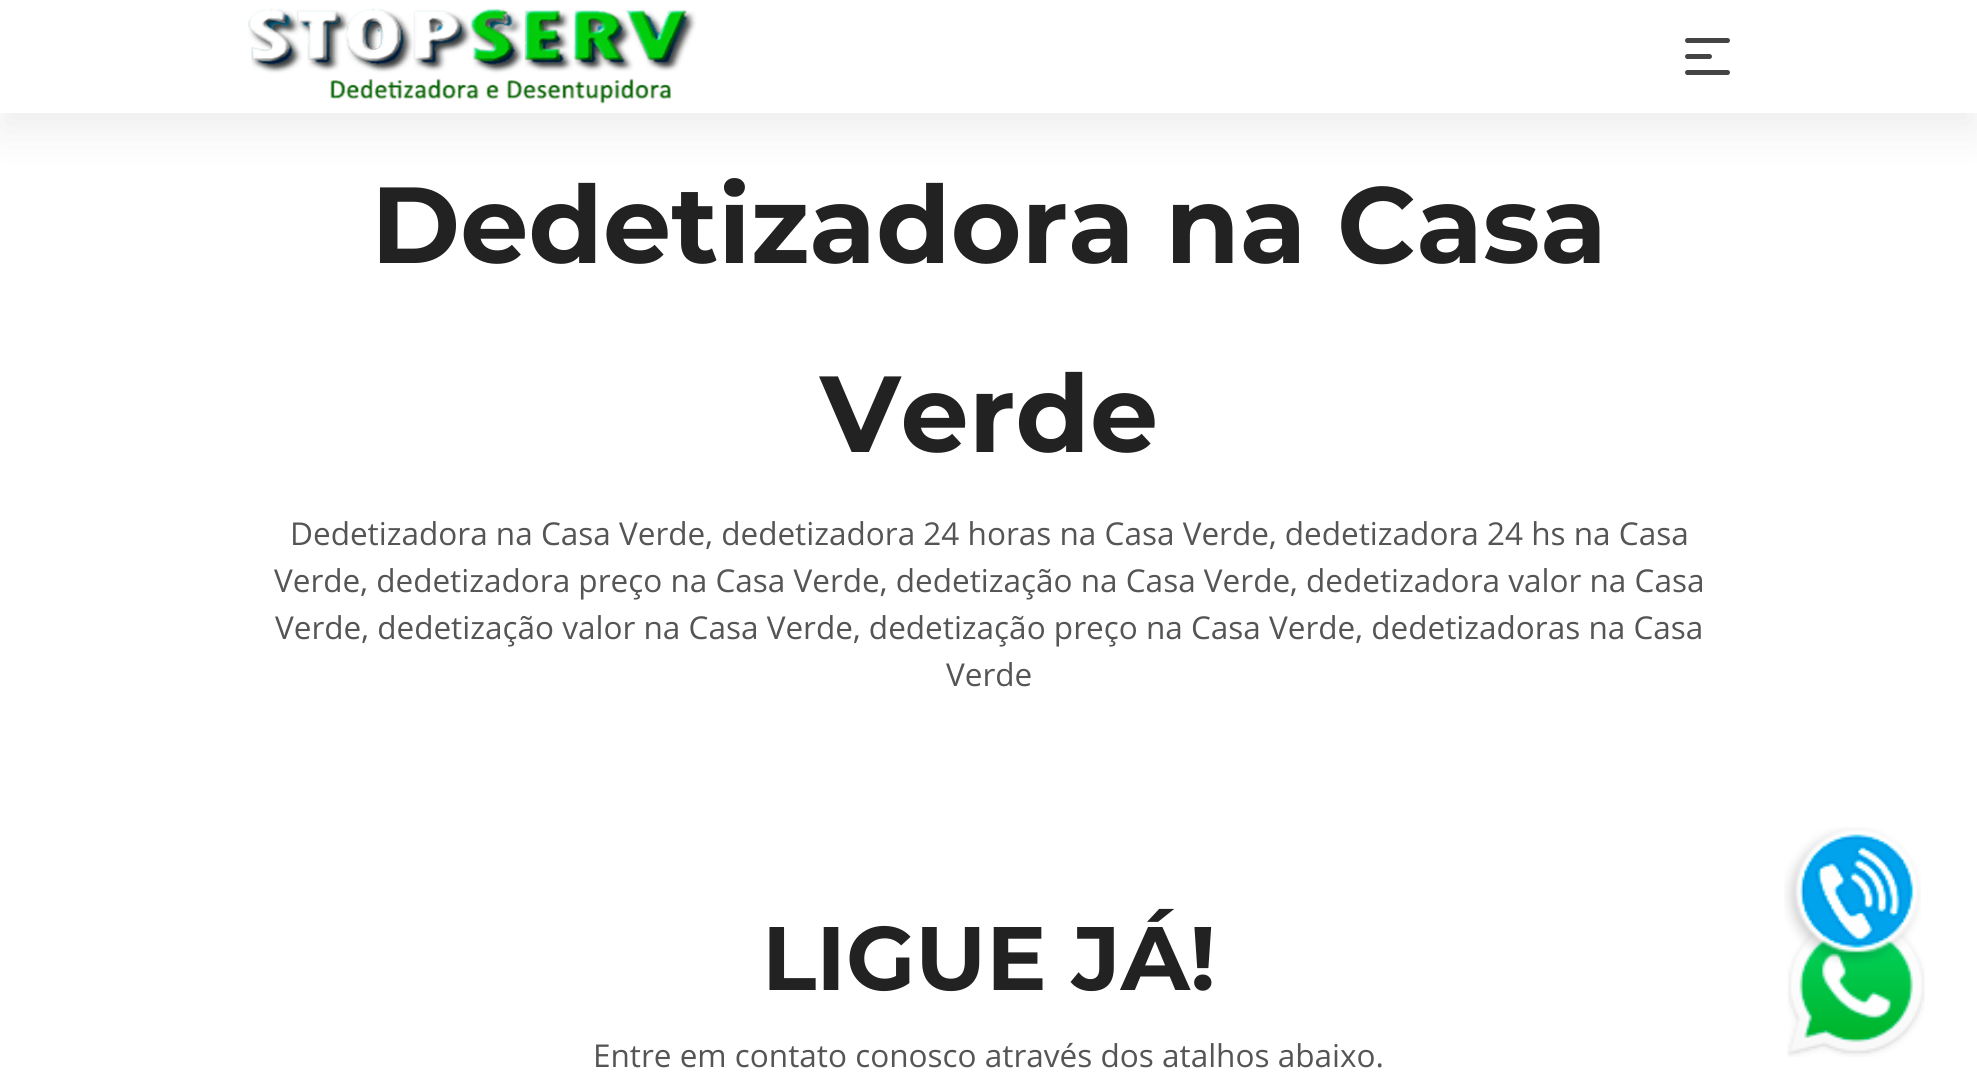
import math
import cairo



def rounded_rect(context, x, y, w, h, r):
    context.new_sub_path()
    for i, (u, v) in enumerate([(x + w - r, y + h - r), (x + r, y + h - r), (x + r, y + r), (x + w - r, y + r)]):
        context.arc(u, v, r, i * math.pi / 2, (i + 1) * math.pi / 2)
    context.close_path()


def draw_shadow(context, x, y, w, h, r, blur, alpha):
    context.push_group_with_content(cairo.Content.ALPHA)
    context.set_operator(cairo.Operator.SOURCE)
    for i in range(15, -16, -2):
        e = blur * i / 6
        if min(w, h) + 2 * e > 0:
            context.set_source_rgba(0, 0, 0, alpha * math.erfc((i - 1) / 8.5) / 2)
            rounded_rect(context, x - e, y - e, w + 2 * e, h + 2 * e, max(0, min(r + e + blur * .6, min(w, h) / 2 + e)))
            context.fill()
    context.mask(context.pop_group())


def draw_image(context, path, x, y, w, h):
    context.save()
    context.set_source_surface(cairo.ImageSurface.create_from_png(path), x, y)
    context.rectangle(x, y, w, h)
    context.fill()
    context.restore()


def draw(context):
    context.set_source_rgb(1, 1, 1)
    context.paint()
    context.set_source_rgb(0, 0, 0)
    draw_shadow(context, 0, 18, 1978, 113, 0, 22.5, 0.07)
    context.set_source_rgb(1, 1, 1)
    context.rectangle(0, 0, 1977, 113)
    context.fill()
    draw_image(context, "images/1.png", 248, 8, 449, 96)
    context.set_source_rgb(68 / 255, 68 / 255, 68 / 255)
    rounded_rect(context, 1685, 38, 45, 5, 2.5)
    context.fill()
    rounded_rect(context, 1685, 54, 27, 5, 2.5)
    context.fill()
    rounded_rect(context, 1685, 70, 45, 5, 2.5)
    context.fill()
    draw_image(context, "images/3.png", 1787, 930, 138, 127)
    draw_image(context, "images/2.png", 1784, 827, 137, 137)
    context.select_font_face("Montserrat", cairo.FontSlant.NORMAL, cairo.FontWeight.BOLD)
    context.set_font_size(108)
    context.set_source_rgb(34 / 255, 34 / 255, 34 / 255)
    context.move_to(371, 263)
    context.show_text("Dedetizadora na Casa")
    context.move_to(820, 452)
    context.show_text("Verde")
    context.select_font_face("Open Sans")
    context.set_font_size(31.5)
    context.set_source_rgb(85 / 255, 85 / 255, 85 / 255)
    context.move_to(290, 545)
    context.show_text("Dedetizadora na Casa Verde, dedetizadora 24 horas na Casa Verde, dedetizadora 24 hs na Casa")
    context.move_to(274, 592)
    context.show_text("Verde, dedetizadora preço na Casa Verde, dedetização na Casa Verde, dedetizadora valor na Casa")
    context.move_to(275, 639)
    context.show_text("Verde, dedetização valor na Casa Verde, dedetização preço na Casa Verde, dedetizadoras na Casa")
    context.move_to(946, 686)
    context.show_text("Verde")
    context.select_font_face("Montserrat", cairo.FontSlant.NORMAL, cairo.FontWeight.BOLD)
    context.set_font_size(90)
    context.set_source_rgb(34 / 255, 34 / 255, 34 / 255)
    context.move_to(762, 990)
    context.show_text("LIGUE JÁ!")
    context.select_font_face("Open Sans")
    context.set_font_size(31.5)
    context.set_source_rgb(85 / 255, 85 / 255, 85 / 255)
    context.move_to(593, 1067)
    context.show_text("Entre em contato conosco através dos atalhos abaixo.")


surface = cairo.ImageSurface(cairo.Format.RGB24, 1977, 1081)
context = cairo.Context(surface)
options = cairo.FontOptions()
options.set_hint_metrics(cairo.HintMetrics.OFF)
options.set_hint_style(cairo.HintStyle.NONE)
context.set_font_options(options)
context.set_miter_limit(4)
draw(context)
surface.write_to_png("out.png")
